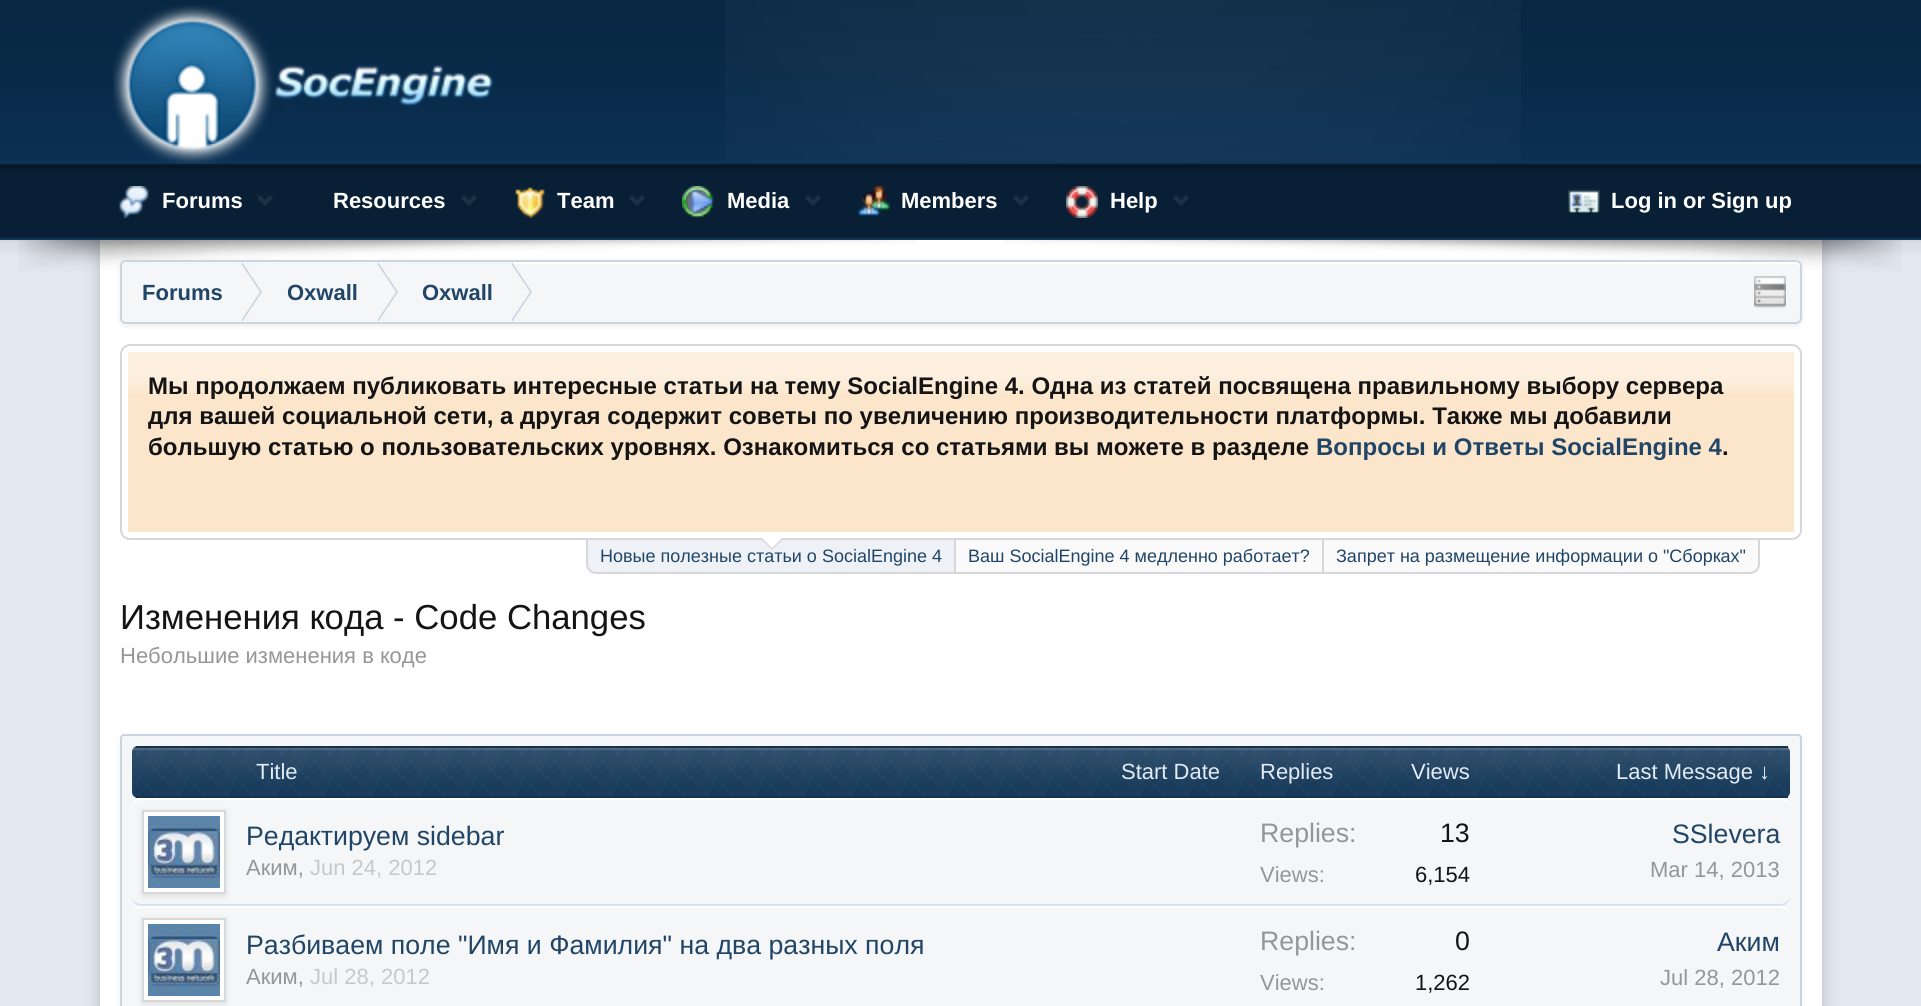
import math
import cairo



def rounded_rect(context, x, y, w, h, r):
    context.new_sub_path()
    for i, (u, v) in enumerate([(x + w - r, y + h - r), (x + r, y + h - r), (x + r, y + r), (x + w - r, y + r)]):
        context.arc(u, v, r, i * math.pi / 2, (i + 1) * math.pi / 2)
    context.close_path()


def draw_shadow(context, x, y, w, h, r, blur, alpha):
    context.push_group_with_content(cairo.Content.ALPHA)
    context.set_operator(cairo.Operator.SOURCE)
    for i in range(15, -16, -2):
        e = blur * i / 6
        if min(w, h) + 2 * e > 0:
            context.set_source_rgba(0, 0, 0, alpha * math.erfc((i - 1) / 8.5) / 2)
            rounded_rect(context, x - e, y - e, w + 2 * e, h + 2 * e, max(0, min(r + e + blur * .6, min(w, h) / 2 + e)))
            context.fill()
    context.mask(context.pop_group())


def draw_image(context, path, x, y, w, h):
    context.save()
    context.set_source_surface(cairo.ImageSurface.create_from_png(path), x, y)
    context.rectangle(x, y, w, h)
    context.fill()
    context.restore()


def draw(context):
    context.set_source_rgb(1, 1, 1)
    context.paint()
    draw_image(context, "images/1.png", 0, 0, 1921, 240)
    context.set_source_rgb(228 / 255, 232 / 255, 240 / 255)
    context.rectangle(0, 240, 1921, 766)
    context.fill()
    draw_image(context, "images/12.png", 0, 240, 1921, 14)
    context.set_source_rgb(0, 0, 0)
    draw_shadow(context, 100, 250, 1722, 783, 0, 9, 0.2)
    draw_image(context, "images/2.png", 725, 0, 796, 240)
    draw_image(context, "images/4.png", 0, 162, 1921, 78)
    draw_image(context, "images/3.png", 113, 5, 382, 159)
    draw_image(context, "images/5.png", 119, 186, 30, 32)
    draw_image(context, "images/6.png", 257, 195, 16, 11)
    draw_image(context, "images/6.png", 461, 195, 16, 11)
    draw_image(context, "images/7.png", 515, 187, 30, 31)
    draw_image(context, "images/6.png", 629, 195, 16, 11)
    draw_image(context, "images/8.png", 682, 186, 32, 32)
    draw_image(context, "images/6.png", 805, 195, 16, 11)
    draw_image(context, "images/9.png", 858, 186, 32, 32)
    draw_image(context, "images/6.png", 1013, 195, 16, 11)
    draw_image(context, "images/10.png", 1066, 186, 32, 32)
    draw_image(context, "images/6.png", 1173, 195, 16, 11)
    draw_image(context, "images/11.png", 1568, 189, 32, 26)
    context.set_source_rgb(1, 1, 1)
    context.rectangle(100, 240, 1722, 766)
    context.fill()
    draw_image(context, "images/13.png", 18, 240, 897, 32)
    draw_image(context, "images/14.png", 1005, 240, 897, 32)
    context.set_source_rgb(0, 0, 0)
    draw_shadow(context, 120, 262, 1682, 64, 6, 3, 0.08)
    context.set_source_rgb(245 / 255, 246 / 255, 247 / 255)
    rounded_rect(context, 120, 260, 1682, 64, 6)
    context.fill()
    context.set_source_rgb(1, 1, 1)
    context.new_path()
    context.move_to(126, 264)
    context.line_to(1796, 264)
    context.curve_to(1798, 264, 1800, 266, 1800, 268)
    context.curve_to(1800, 265, 1800, 262, 1796, 262)
    context.line_to(126, 262)
    context.curve_to(122, 262, 122, 265, 122, 268)
    context.curve_to(122, 266, 124, 264, 126, 264)
    context.close_path()
    context.fill()
    rounded_rect(context, 121, 261, 1680, 62, 5)
    context.set_source_rgb(202 / 255, 213 / 255, 224 / 255)
    context.stroke()
    context.set_source_rgb(245 / 255, 246 / 255, 247 / 255)
    context.new_path()
    context.move_to(126, 262)
    context.line_to(242, 262)
    context.line_to(242, 322)
    context.line_to(126, 322)
    context.curve_to(124, 322, 122, 320, 122, 318)
    context.line_to(122, 266)
    context.curve_to(122, 264, 124, 262, 126, 262)
    context.close_path()
    context.fill()
    context.rectangle(242, 262, 270, 2)
    context.fill()
    context.set_source_rgb(202 / 255, 213 / 255, 224 / 255)
    context.new_path()
    context.move_to(242, 322)
    context.line_to(242, 262)
    context.line_to(262, 292)
    context.close_path()
    context.fill()
    context.set_source_rgb(245 / 255, 246 / 255, 247 / 255)
    context.new_path()
    context.move_to(240, 322)
    context.line_to(240, 262)
    context.line_to(260, 292)
    context.close_path()
    context.fill()
    context.set_source_rgb(202 / 255, 213 / 255, 224 / 255)
    context.new_path()
    context.move_to(378, 322)
    context.line_to(378, 262)
    context.line_to(398, 292)
    context.close_path()
    context.fill()
    context.set_source_rgb(245 / 255, 246 / 255, 247 / 255)
    context.new_path()
    context.move_to(376, 322)
    context.line_to(376, 262)
    context.line_to(396, 292)
    context.close_path()
    context.fill()
    context.set_source_rgb(202 / 255, 213 / 255, 224 / 255)
    context.new_path()
    context.move_to(512, 322)
    context.line_to(512, 262)
    context.line_to(532, 292)
    context.close_path()
    context.fill()
    context.set_source_rgb(245 / 255, 246 / 255, 247 / 255)
    context.new_path()
    context.move_to(510, 322)
    context.line_to(510, 262)
    context.line_to(530, 292)
    context.close_path()
    context.fill()
    draw_image(context, "images/15.png", 1754, 276, 32, 32)
    rounded_rect(context, 121, 345, 1680, 194, 9)
    context.set_source_rgb(215 / 255, 215 / 255, 215 / 255)
    context.stroke()
    context.set_source_rgb(251 / 255, 230 / 255, 204 / 255)
    context.rectangle(128, 352, 1666, 180)
    context.fill()
    draw_image(context, "images/16.png", 128, 352, 1666, 41)
    context.set_source_rgb(238 / 255, 241 / 255, 245 / 255)
    context.new_path()
    context.move_to(587, 539)
    context.line_to(955, 539)
    context.line_to(955, 573)
    context.line_to(596, 573)
    context.curve_to(591, 573, 587, 569, 587, 564)
    context.close_path()
    context.fill_preserve()
    context.set_source_rgb(215 / 255, 215 / 255, 215 / 255)
    context.stroke()
    context.set_source_rgb(250 / 255, 250 / 255, 250 / 255)
    context.rectangle(955, 539, 368, 34)
    context.fill_preserve()
    context.set_source_rgb(215 / 255, 215 / 255, 215 / 255)
    context.stroke()
    context.set_source_rgb(250 / 255, 250 / 255, 250 / 255)
    context.new_path()
    context.move_to(1323, 539)
    context.line_to(1759, 539)
    context.line_to(1759, 564)
    context.curve_to(1759, 569, 1755, 573, 1750, 573)
    context.line_to(1323, 573)
    context.close_path()
    context.fill_preserve()
    context.set_source_rgb(215 / 255, 215 / 255, 215 / 255)
    context.stroke()
    context.set_source_rgb(0, 0, 0)
    draw_shadow(context, 120, 736, 1682, 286, 4, 4, 0.05)
    context.set_source_rgb(245 / 255, 246 / 255, 247 / 255)
    rounded_rect(context, 121, 735, 1680, 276, 3)
    context.fill_preserve()
    context.set_source_rgb(202 / 255, 213 / 255, 224 / 255)
    context.stroke()
    context.set_source_rgb(24 / 255, 60 / 255, 93 / 255)
    rounded_rect(context, 132, 746, 1658, 52, 6)
    context.fill()
    draw_image(context, "images/17.png", 132, 748, 1658, 49)
    context.set_source_rgb(20 / 255, 51 / 255, 79 / 255)
    context.rectangle(136, 746, 1652, 2)
    context.fill()
    context.rectangle(136, 796, 1652, 2)
    context.fill()
    context.set_source_rgb(1, 1, 1)
    context.new_path()
    context.move_to(142, 798)
    context.curve_to(136, 798, 132, 802, 132, 808)
    context.curve_to(132, 804, 136, 800, 142, 800)
    context.line_to(1780, 800)
    context.curve_to(1786, 800, 1790, 804, 1790, 808)
    context.curve_to(1790, 802, 1786, 798, 1780, 798)
    context.close_path()
    context.fill()
    context.set_source_rgb(217 / 255, 226 / 255, 236 / 255)
    context.new_path()
    context.move_to(1780, 906)
    context.curve_to(1786, 906, 1790, 902, 1790, 896)
    context.curve_to(1790, 900, 1786, 904, 1780, 904)
    context.line_to(142, 904)
    context.curve_to(136, 904, 132, 900, 132, 896)
    context.curve_to(132, 902, 136, 906, 142, 906)
    context.close_path()
    context.fill()
    context.set_source_rgb(0, 0, 0)
    draw_shadow(context, 142, 812, 84, 84, 0, 3, 0.1)
    context.set_source_rgb(1, 1, 1)
    context.rectangle(143, 811, 82, 82)
    context.fill_preserve()
    context.set_source_rgb(215 / 255, 215 / 255, 215 / 255)
    context.stroke()
    draw_image(context, "images/18.png", 148, 816, 72, 72)
    context.set_source_rgb(1, 1, 1)
    context.new_path()
    context.move_to(142, 906)
    context.curve_to(136, 906, 132, 910, 132, 916)
    context.curve_to(132, 912, 136, 908, 142, 908)
    context.line_to(1780, 908)
    context.curve_to(1786, 908, 1790, 912, 1790, 916)
    context.curve_to(1790, 910, 1786, 906, 1780, 906)
    context.close_path()
    context.fill()
    context.set_source_rgb(0, 0, 0)
    draw_shadow(context, 142, 920, 84, 84, 0, 3, 0.1)
    context.set_source_rgb(1, 1, 1)
    context.rectangle(143, 919, 82, 82)
    context.fill_preserve()
    context.set_source_rgb(215 / 255, 215 / 255, 215 / 255)
    context.stroke()
    draw_image(context, "images/18.png", 148, 924, 72, 72)
    context.select_font_face("Liberation Sans", cairo.FontSlant.NORMAL, cairo.FontWeight.BOLD)
    context.set_font_size(22)
    context.set_source_rgb(1, 1, 1)
    context.move_to(162, 208)
    context.show_text("Forums")
    context.move_to(333, 208)
    context.show_text("Resources")
    context.move_to(557, 208)
    context.show_text("Team")
    context.move_to(727, 208)
    context.show_text("Media")
    context.move_to(901, 208)
    context.show_text("Members")
    context.move_to(1110, 208)
    context.show_text("Help")
    context.move_to(1611, 208)
    context.show_text("Log in or Sign up")
    context.set_source_rgb(32 / 255, 69 / 255, 103 / 255)
    context.move_to(142, 300)
    context.show_text("Forums")
    context.move_to(287, 300)
    context.show_text("Oxwall")
    context.move_to(422, 300)
    context.show_text("Oxwall")
    context.set_font_size(24)
    context.set_source_rgb(20 / 255, 20 / 255, 20 / 255)
    context.move_to(148, 394)
    context.show_text("Мы продолжаем публиковать интересные статьи на тему SocialEngine 4. Одна из статей посвящена правильному выбору сервера")
    context.move_to(148, 424)
    context.show_text("для вашей социальной сети, а другая содержит советы по увеличению производительности платформы. Также мы добавили")
    context.move_to(148, 455)
    context.show_text("большую статью о пользовательских уровнях. Ознакомиться со статьями вы можете в разделе")
    context.set_source_rgb(32 / 255, 69 / 255, 103 / 255)
    context.move_to(1316, 455)
    context.show_text("Вопросы и Ответы SocialEngine 4")
    context.set_source_rgb(20 / 255, 20 / 255, 20 / 255)
    context.move_to(1722, 455)
    context.show_text(".")
    context.select_font_face("Liberation Sans")
    context.set_font_size(18)
    context.set_source_rgb(32 / 255, 69 / 255, 103 / 255)
    context.move_to(600, 562)
    context.show_text("Новые полезные статьи о SocialEngine 4")
    context.set_source_rgb(215 / 255, 215 / 255, 215 / 255)
    context.new_path()
    context.move_to(762, 540)
    context.line_to(782, 540)
    context.line_to(772, 550)
    context.close_path()
    context.fill()
    context.set_source_rgb(1, 1, 1)
    context.new_path()
    context.move_to(762, 538)
    context.line_to(782, 538)
    context.line_to(772, 548)
    context.close_path()
    context.fill()
    context.set_source_rgb(32 / 255, 69 / 255, 103 / 255)
    context.move_to(968, 562)
    context.show_text("Ваш SocialEngine 4 медленно работает?")
    context.move_to(1336, 562)
    context.show_text("Запрет на размещение информации о \"Сборках\"")
    context.set_font_size(34.7)
    context.set_source_rgb(20 / 255, 20 / 255, 20 / 255)
    context.move_to(120, 629)
    context.show_text("Изменения кода - Code Changes")
    context.set_font_size(22)
    context.set_source_rgb(150 / 255, 150 / 255, 150 / 255)
    context.move_to(120, 663)
    context.show_text("Небольшие изменения в коде")
    context.set_source_rgb(227 / 255, 235 / 255, 244 / 255)
    context.move_to(256, 779)
    context.show_text("Title")
    context.move_to(1121, 779)
    context.show_text("Start Date")
    context.move_to(1260, 779)
    context.show_text("Replies")
    context.move_to(1411, 779)
    context.show_text("Views")
    context.move_to(1616, 779)
    context.show_text("Last Message ↓")
    context.set_font_size(26.7)
    context.set_source_rgb(32 / 255, 69 / 255, 103 / 255)
    context.move_to(246, 845)
    context.show_text("Редактируем sidebar")
    context.set_font_size(22)
    context.set_source_rgb(150 / 255, 150 / 255, 150 / 255)
    context.move_to(246, 875)
    context.show_text("Аким,")
    context.set_source_rgb(200 / 255, 200 / 255, 200 / 255)
    context.move_to(310, 875)
    context.show_text("Jun 24, 2012")
    context.set_font_size(26.7)
    context.set_source_rgb(150 / 255, 150 / 255, 150 / 255)
    context.move_to(1260, 842)
    context.show_text("Replies:")
    context.set_source_rgb(20 / 255, 20 / 255, 20 / 255)
    context.move_to(1440, 842)
    context.show_text("13")
    context.set_font_size(22)
    context.set_source_rgb(150 / 255, 150 / 255, 150 / 255)
    context.move_to(1260, 882)
    context.show_text("Views:")
    context.set_source_rgb(20 / 255, 20 / 255, 20 / 255)
    context.move_to(1415, 882)
    context.show_text("6,154")
    context.set_font_size(26.7)
    context.set_source_rgb(32 / 255, 69 / 255, 103 / 255)
    context.move_to(1672, 843)
    context.show_text("SSlevera")
    context.set_font_size(22)
    context.set_source_rgb(150 / 255, 150 / 255, 150 / 255)
    context.move_to(1650, 877)
    context.show_text("Mar 14, 2013")
    context.set_font_size(26.7)
    context.set_source_rgb(32 / 255, 69 / 255, 103 / 255)
    context.move_to(246, 954)
    context.show_text("Разбиваем поле \"Имя и Фамилия\" на два разных поля")
    context.set_font_size(22)
    context.set_source_rgb(150 / 255, 150 / 255, 150 / 255)
    context.move_to(246, 984)
    context.show_text("Аким,")
    context.set_source_rgb(200 / 255, 200 / 255, 200 / 255)
    context.move_to(310, 984)
    context.show_text("Jul 28, 2012")
    context.set_font_size(26.7)
    context.set_source_rgb(150 / 255, 150 / 255, 150 / 255)
    context.move_to(1260, 950)
    context.show_text("Replies:")
    context.set_source_rgb(20 / 255, 20 / 255, 20 / 255)
    context.move_to(1455, 950)
    context.show_text("0")
    context.set_font_size(22)
    context.set_source_rgb(150 / 255, 150 / 255, 150 / 255)
    context.move_to(1260, 990)
    context.show_text("Views:")
    context.set_source_rgb(20 / 255, 20 / 255, 20 / 255)
    context.move_to(1415, 990)
    context.show_text("1,262")
    context.set_font_size(26.7)
    context.set_source_rgb(32 / 255, 69 / 255, 103 / 255)
    context.move_to(1717, 951)
    context.show_text("Аким")
    context.set_font_size(22)
    context.set_source_rgb(150 / 255, 150 / 255, 150 / 255)
    context.move_to(1660, 985)
    context.show_text("Jul 28, 2012")


surface = cairo.ImageSurface(cairo.Format.RGB24, 1921, 1006)
context = cairo.Context(surface)
options = cairo.FontOptions()
options.set_hint_metrics(cairo.HintMetrics.OFF)
options.set_hint_style(cairo.HintStyle.NONE)
context.set_font_options(options)
context.set_miter_limit(4)
draw(context)
surface.write_to_png("out.png")
